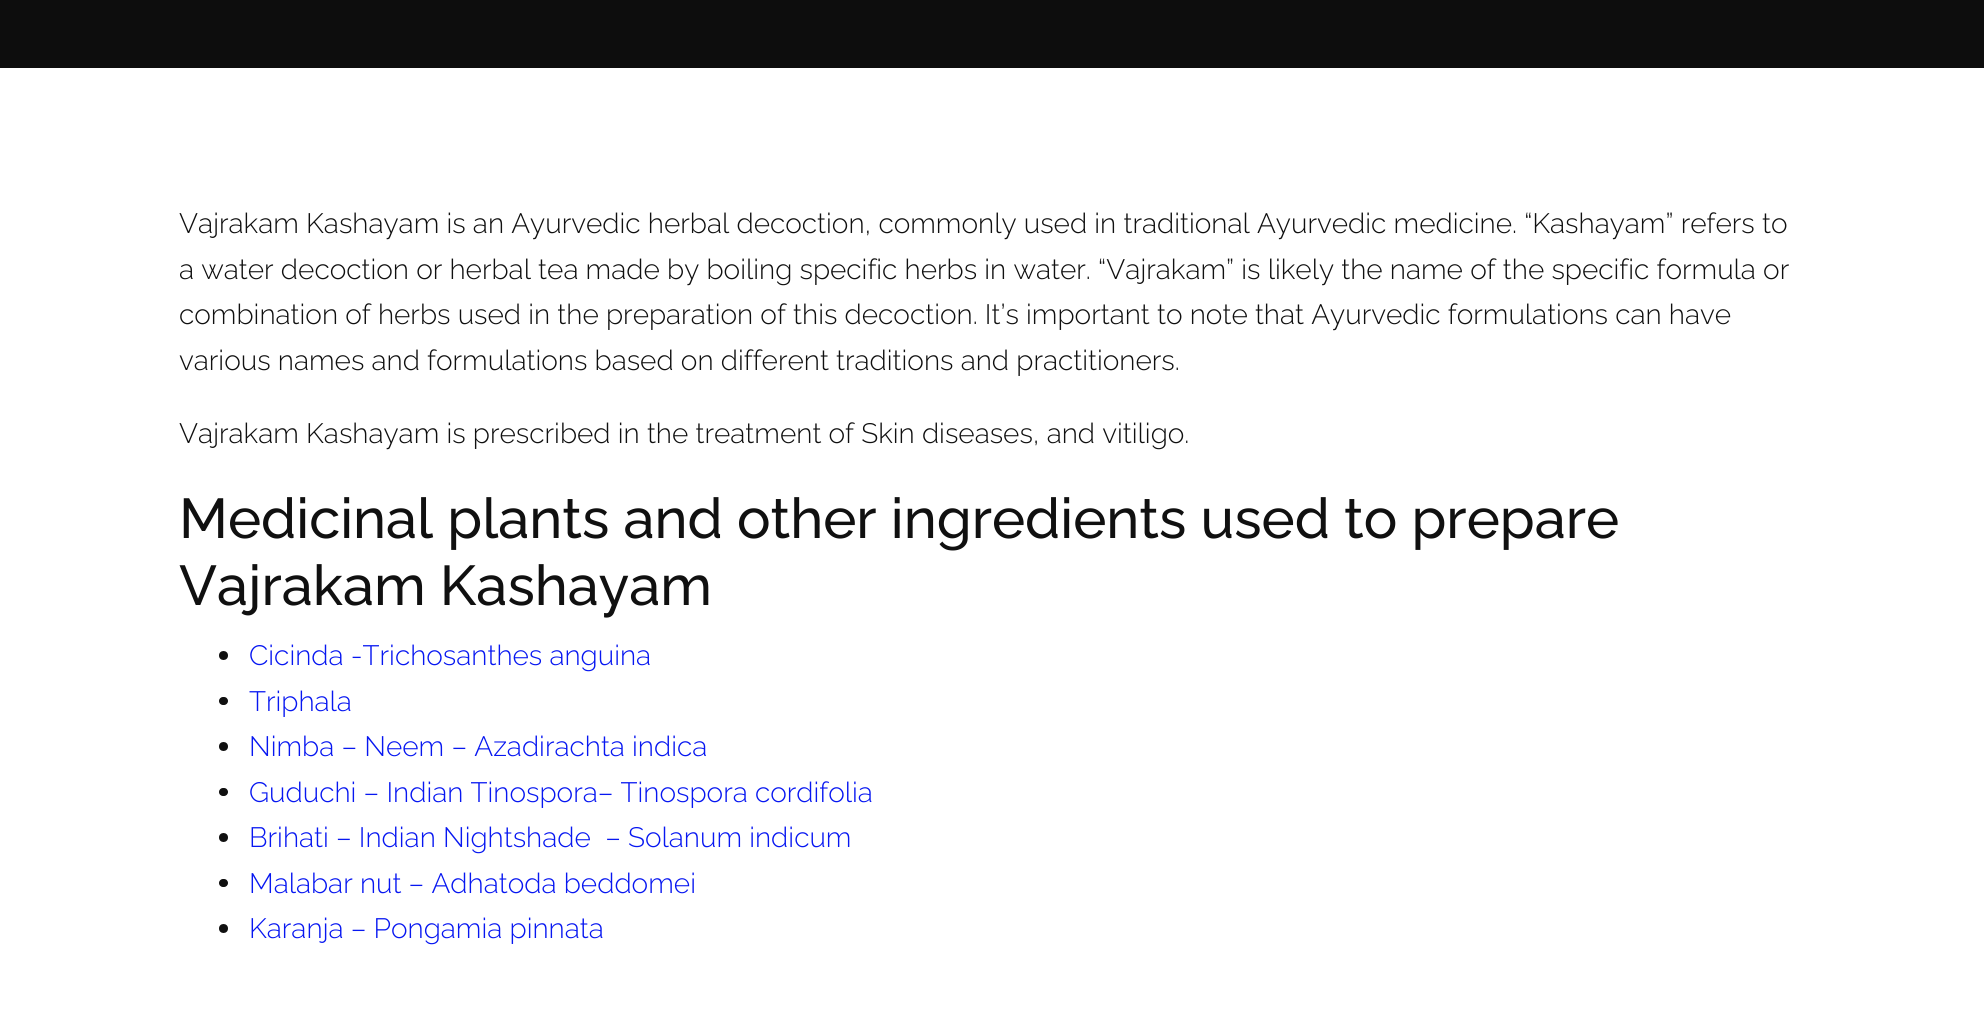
import math
import cairo



def rounded_rect(context, x, y, w, h, r):
    context.new_sub_path()
    for i, (u, v) in enumerate([(x + w - r, y + h - r), (x + r, y + h - r), (x + r, y + r), (x + w - r, y + r)]):
        context.arc(u, v, r, i * math.pi / 2, (i + 1) * math.pi / 2)
    context.close_path()


def draw(context):
    context.set_source_rgb(1, 1, 1)
    context.paint()
    context.set_source_rgb(13 / 255, 13 / 255, 13 / 255)
    context.rectangle(0, 0, 1984, 68)
    context.fill()
    context.set_source_rgb(16 / 255, 16 / 255, 16 / 255)
    context.arc(223.5, 655.5, 4.5, 0, 2 * math.pi)
    context.fill()
    rounded_rect(context, 219, 697, 9, 8, 4)
    context.fill()
    context.arc(223.5, 746.5, 4.5, 0, 2 * math.pi)
    context.fill()
    rounded_rect(context, 219, 788, 9, 8, 4)
    context.fill()
    context.arc(223.5, 837.5, 4.5, 0, 2 * math.pi)
    context.fill()
    rounded_rect(context, 219, 879, 9, 8, 4)
    context.fill()
    context.arc(223.5, 928.5, 4.5, 0, 2 * math.pi)
    context.fill()
    context.select_font_face("Raleway Light")
    context.set_font_size(28)
    context.move_to(179, 233)
    context.show_text("Vajrakam Kashayam is an Ayurvedic herbal decoction, commonly used in traditional Ayurvedic medicine. “Kashayam” refers to")
    context.move_to(179, 279)
    context.show_text("a water decoction or herbal tea made by boiling specific herbs in water. “Vajrakam” is likely the name of the specific formula or")
    context.move_to(179, 324)
    context.show_text("combination of herbs used in the preparation of this decoction. It’s important to note that Ayurvedic formulations can have")
    context.move_to(179, 370)
    context.show_text("various names and formulations based on different traditions and practitioners.")
    context.move_to(179, 443)
    context.show_text("Vajrakam Kashayam is prescribed in the treatment of Skin diseases, and vitiligo.")
    context.select_font_face("Raleway Medium")
    context.set_font_size(56)
    context.move_to(179, 538)
    context.show_text("Medicinal plants and other ingredients used to prepare")
    context.move_to(179, 605)
    context.show_text("Vajrakam Kashayam")
    context.select_font_face("Raleway Light")
    context.set_font_size(28)
    context.set_source_rgb(7 / 255, 23 / 255, 241 / 255)
    context.move_to(249, 665)
    context.show_text("Cicinda -Trichosanthes anguina")
    context.move_to(249, 711)
    context.show_text("Triphala")
    context.move_to(249, 756)
    context.show_text("Nimba – Neem – Azadirachta indica")
    context.move_to(249, 802)
    context.show_text("Guduchi – Indian Tinospora– Tinospora cordifolia")
    context.move_to(249, 847)
    context.show_text("Brihati – Indian Nightshade  – Solanum indicum")
    context.move_to(249, 893)
    context.show_text("Malabar nut – Adhatoda beddomei")
    context.move_to(249, 938)
    context.show_text("Karanja – Pongamia pinnata")


surface = cairo.ImageSurface(cairo.Format.RGB24, 1984, 1011)
context = cairo.Context(surface)
options = cairo.FontOptions()
options.set_hint_metrics(cairo.HintMetrics.OFF)
options.set_hint_style(cairo.HintStyle.NONE)
context.set_font_options(options)
context.set_miter_limit(4)
draw(context)
surface.write_to_png("out.png")
